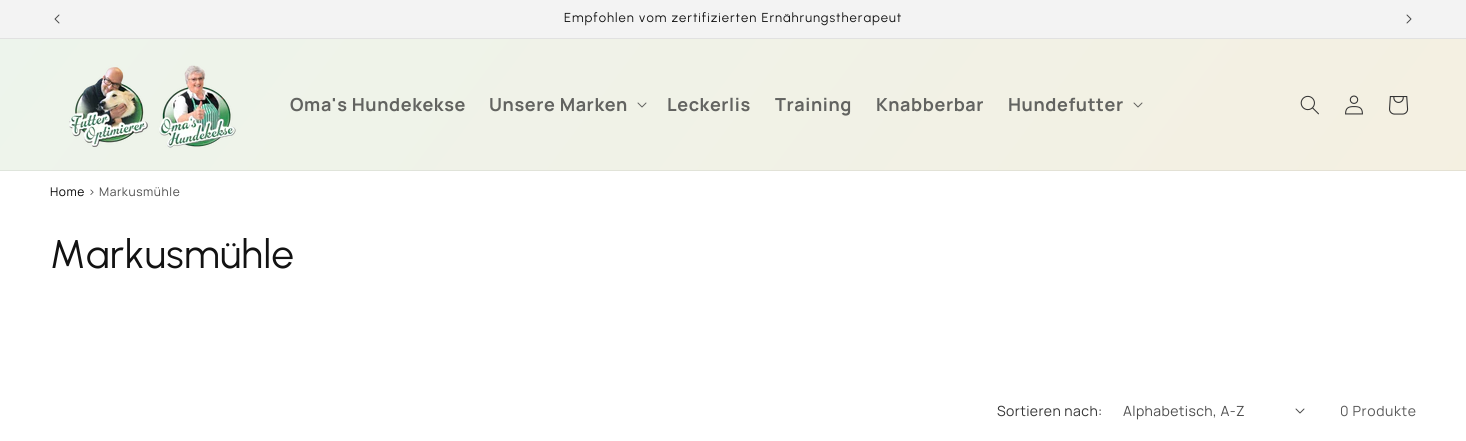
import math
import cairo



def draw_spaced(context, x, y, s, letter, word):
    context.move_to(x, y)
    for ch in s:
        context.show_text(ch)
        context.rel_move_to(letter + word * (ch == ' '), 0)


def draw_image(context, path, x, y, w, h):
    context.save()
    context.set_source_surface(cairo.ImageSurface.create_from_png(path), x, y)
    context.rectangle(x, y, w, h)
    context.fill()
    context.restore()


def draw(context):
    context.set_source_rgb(1, 1, 1)
    context.paint()
    context.set_source_rgb(243 / 255, 243 / 255, 243 / 255)
    context.rectangle(0, 0, 1466, 38)
    context.fill()
    context.set_source_rgb(225 / 255, 225 / 255, 225 / 255)
    context.rectangle(0, 38, 1466, 1)
    context.fill()
    draw_image(context, "images/1.png", 54, 14, 6, 10)
    draw_image(context, "images/2.png", 1406, 14, 6, 10)
    gradient = cairo.LinearGradient(159, -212, 1307, 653)
    gradient.add_color_stop_rgba(0, 237 / 255, 244 / 255, 236 / 255, 1)
    gradient.add_color_stop_rgba(1, 245 / 255, 239 / 255, 224 / 255, 1)
    context.set_source(gradient)
    context.rectangle(0, 39, 1466, 131)
    context.fill()
    gradient = cairo.LinearGradient(159, -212, 1307, 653)
    gradient.add_color_stop_rgba(0, 222 / 255, 229 / 255, 221 / 255, 1)
    gradient.add_color_stop_rgba(1, 229 / 255, 224 / 255, 210 / 255, 1)
    context.set_source(gradient)
    context.rectangle(0, 170, 1466, 1)
    context.fill()
    draw_image(context, "images/3.png", 69, 65, 167, 83)
    draw_image(context, "images/4.png", 637, 102, 10, 6)
    draw_image(context, "images/5.png", 1133, 102, 10, 6)
    draw_image(context, "images/6.png", 1300, 95, 19, 20)
    draw_image(context, "images/7.png", 1345, 95, 18, 20)
    draw_image(context, "images/8.png", 1389, 96, 20, 19)
    draw_image(context, "images/9.png", 1295, 408, 10, 6)
    context.select_font_face("Urbanist")
    context.set_font_size(13)
    context.set_source_rgb(18 / 255, 18 / 255, 18 / 255)
    draw_spaced(context, 564, 22, "Empfohlen vom zertifizierten Ernährungstherapeut", 1, 0)
    context.select_font_face("Manrope", cairo.FontSlant.NORMAL, cairo.FontWeight.BOLD)
    context.set_font_size(18)
    context.set_source_rgb(98 / 255, 99 / 255, 96 / 255)
    draw_spaced(context, 290, 111, "Oma's Hundekekse", 0.6, 0)
    draw_spaced(context, 489, 111, "Unsere Marken", 0.6, 0)
    draw_spaced(context, 667, 111, "Leckerlis", 0.6, 0)
    draw_spaced(context, 775, 111, "Training", 0.6, 0)
    draw_spaced(context, 876, 111, "Knabberbar", 0.6, 0)
    draw_spaced(context, 1008, 111, "Hundefutter", 0.6, 0)
    context.select_font_face("Manrope")
    context.set_font_size(12)
    context.set_source_rgb(0, 0, 0)
    draw_spaced(context, 50, 196, "Home", 0.6, 0)
    context.set_source_rgb(77 / 255, 77 / 255, 77 / 255)
    draw_spaced(context, 88, 196, "> Markusmühle", 0.6, 0)
    context.select_font_face("Urbanist")
    context.set_font_size(40)
    context.set_source_rgb(18 / 255, 18 / 255, 18 / 255)
    draw_spaced(context, 50, 268, "Markusmühle", 0.6, 0)
    context.select_font_face("Manrope")
    context.set_font_size(14)
    context.set_source_rgb(54 / 255, 54 / 255, 54 / 255)
    draw_spaced(context, 997, 416, "Sortieren nach:", 0.4, 0)
    context.set_source_rgb(77 / 255, 77 / 255, 77 / 255)
    draw_spaced(context, 1123, 416, "Alphabetisch, A-Z", 0.4, 0)
    context.set_source_rgb(89 / 255, 89 / 255, 89 / 255)
    draw_spaced(context, 1340, 416, "0 Produkte", 0.6, 0)


surface = cairo.ImageSurface(cairo.Format.RGB24, 1466, 441)
context = cairo.Context(surface)
options = cairo.FontOptions()
options.set_hint_metrics(cairo.HintMetrics.OFF)
options.set_hint_style(cairo.HintStyle.NONE)
context.set_font_options(options)
context.set_miter_limit(4)
draw(context)
surface.write_to_png("out.png")
